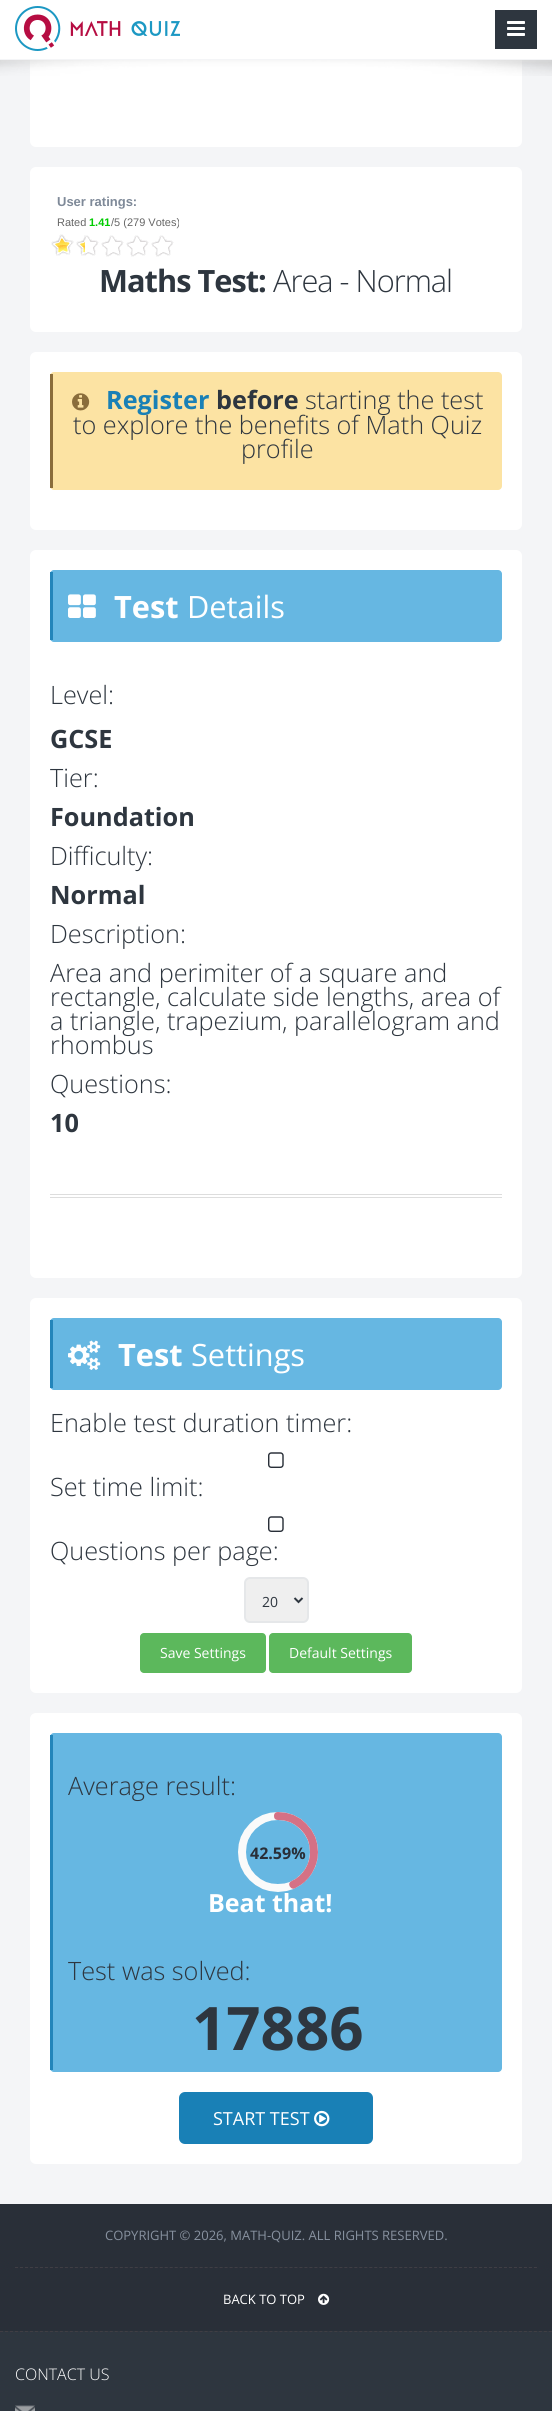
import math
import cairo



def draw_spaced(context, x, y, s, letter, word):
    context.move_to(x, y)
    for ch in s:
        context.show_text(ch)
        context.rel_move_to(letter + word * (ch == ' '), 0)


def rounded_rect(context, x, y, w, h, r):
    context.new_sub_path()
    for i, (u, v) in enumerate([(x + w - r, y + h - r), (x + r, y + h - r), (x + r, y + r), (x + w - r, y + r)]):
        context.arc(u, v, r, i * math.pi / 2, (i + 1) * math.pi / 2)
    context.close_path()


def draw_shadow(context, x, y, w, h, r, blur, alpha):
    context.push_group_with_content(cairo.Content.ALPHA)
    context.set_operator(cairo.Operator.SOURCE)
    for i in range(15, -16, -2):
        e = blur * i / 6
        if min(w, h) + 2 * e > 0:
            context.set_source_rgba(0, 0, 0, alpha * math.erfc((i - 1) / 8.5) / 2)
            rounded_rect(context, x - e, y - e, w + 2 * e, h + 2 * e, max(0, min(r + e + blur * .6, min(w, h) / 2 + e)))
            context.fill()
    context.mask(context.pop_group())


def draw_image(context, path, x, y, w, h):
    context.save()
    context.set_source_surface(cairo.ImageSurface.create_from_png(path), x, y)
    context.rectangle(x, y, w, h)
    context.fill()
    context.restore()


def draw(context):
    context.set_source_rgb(46 / 255, 54 / 255, 63 / 255)
    context.paint()
    context.set_source_rgb(244 / 255, 245 / 255, 247 / 255)
    context.rectangle(0, 60, 552, 2144)
    context.fill()
    context.set_source_rgb(1, 1, 1)
    rounded_rect(context, 30, -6, 492, 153, 6)
    context.fill()
    draw_image(context, "images/3.png", 0, 60, 552, 16)
    context.set_source_rgb(238 / 255, 238 / 255, 238 / 255)
    draw_shadow(context, 0, 0, 552, 60, 0, 4, 1)
    context.set_source_rgb(1, 1, 1)
    context.rectangle(0, 0, 552, 59)
    context.fill()
    context.set_source_rgb(244 / 255, 245 / 255, 247 / 255)
    context.rectangle(0, 59, 552, 1)
    context.fill()
    draw_image(context, "images/1.png", 15, 6, 165, 45)
    context.set_source_rgb(46 / 255, 54 / 255, 63 / 255)
    context.rectangle(495, 10, 42, 39)
    context.fill()
    draw_image(context, "images/2.png", 507, 21, 18, 15)
    context.set_source_rgb(1, 1, 1)
    rounded_rect(context, 30, 167, 492, 165, 6)
    context.fill()
    draw_image(context, "images/4.png", 85, 235, 89, 22)
    draw_image(context, "images/5.png", 51, 234, 34, 23)
    rounded_rect(context, 30, 352, 492, 178, 6)
    context.fill()
    context.set_source_rgb(252 / 255, 227 / 255, 163 / 255)
    rounded_rect(context, 50, 372, 452, 118, 4)
    context.fill()
    context.set_source_rgb(138 / 255, 109 / 255, 59 / 255)
    context.rectangle(50, 374, 3, 114)
    context.fill()
    draw_image(context, "images/6.png", 72, 393, 18, 18)
    context.set_source_rgb(1, 1, 1)
    rounded_rect(context, 30, 550, 492, 728, 6)
    context.fill()
    context.set_source_rgb(102 / 255, 183 / 255, 226 / 255)
    rounded_rect(context, 50, 570, 452, 72, 4)
    context.fill()
    context.set_source_rgb(35 / 255, 133 / 255, 186 / 255)
    context.rectangle(50, 572, 3, 68)
    context.fill()
    draw_image(context, "images/7.png", 68, 594, 28, 24)
    context.set_source_rgb(221 / 255, 221 / 255, 221 / 255)
    context.rectangle(50, 1194, 452, 1)
    context.fill()
    context.rectangle(50, 1197, 452, 1)
    context.fill()
    context.set_source_rgb(1, 1, 1)
    rounded_rect(context, 30, 1298, 492, 395, 6)
    context.fill()
    context.set_source_rgb(102 / 255, 183 / 255, 226 / 255)
    rounded_rect(context, 50, 1318, 452, 72, 4)
    context.fill()
    context.set_source_rgb(35 / 255, 133 / 255, 186 / 255)
    context.rectangle(50, 1320, 3, 68)
    context.fill()
    draw_image(context, "images/8.png", 68, 1340, 33, 30)
    draw_image(context, "images/9.png", 268, 1452, 16, 16)
    draw_image(context, "images/9.png", 268, 1516, 16, 16)
    context.set_source_rgb(239 / 255, 239 / 255, 239 / 255)
    rounded_rect(context, 245, 1578, 63, 44, 5)
    context.fill_preserve()
    context.set_source_rgb(229 / 255, 231 / 255, 233 / 255)
    context.stroke()
    context.new_path()
    context.move_to(294.5, 1598)
    context.line_to(298.5, 1602)
    context.line_to(302.5, 1598)
    context.set_source_rgb(46 / 255, 54 / 255, 63 / 255)
    context.stroke()
    context.set_source_rgb(92 / 255, 184 / 255, 92 / 255)
    rounded_rect(context, 140, 1633, 126, 40, 4)
    context.fill()
    rounded_rect(context, 269, 1633, 143, 40, 4)
    context.fill()
    context.set_source_rgb(1, 1, 1)
    rounded_rect(context, 30, 1713, 492, 451, 6)
    context.fill()
    context.set_source_rgb(102 / 255, 183 / 255, 226 / 255)
    rounded_rect(context, 50, 1733, 452, 339, 4)
    context.fill()
    context.set_source_rgb(35 / 255, 133 / 255, 186 / 255)
    context.rectangle(50, 1735, 3, 335)
    context.fill()
    draw_image(context, "images/10.png", 238, 1812, 80, 80)
    context.set_source_rgb(25 / 255, 128 / 255, 182 / 255)
    rounded_rect(context, 179, 2092, 194, 52, 6)
    context.fill()
    draw_image(context, "images/11.png", 314, 2110, 16, 17)
    context.set_source_rgb(41 / 255, 47 / 255, 56 / 255)
    context.rectangle(0, 2204, 552, 127)
    context.fill()
    context.new_path()
    context.move_to(15, 2267.5)
    context.line_to(537, 2267.5)
    context.set_source_rgb(64 / 255, 62 / 255, 68 / 255)
    context.set_line_width(1)
    context.set_dash([3, 1.99])
    context.stroke()
    draw_image(context, "images/12.png", 318, 2293, 12, 12)
    context.new_path()
    context.move_to(0, 2331.5)
    context.line_to(552, 2331.5)
    context.stroke()
    draw_image(context, "images/13.png", 15, 2405, 20, 6)
    context.select_font_face("Liberation Sans", cairo.FontSlant.NORMAL, cairo.FontWeight.BOLD)
    context.set_font_size(13)
    context.set_source_rgb(126 / 255, 137 / 255, 152 / 255)
    context.move_to(57, 206)
    context.show_text("User ratings:")
    context.select_font_face("Liberation Sans")
    context.set_font_size(11)
    context.set_source_rgb(102 / 255, 102 / 255, 102 / 255)
    context.move_to(57, 226)
    context.show_text("Rated")
    context.select_font_face("Liberation Sans", cairo.FontSlant.NORMAL, cairo.FontWeight.BOLD)
    context.set_source_rgb(0, 204 / 255, 0)
    context.move_to(89, 226)
    context.show_text("1.41")
    context.select_font_face("Liberation Sans")
    context.set_source_rgb(102 / 255, 102 / 255, 102 / 255)
    context.move_to(111, 226)
    context.show_text("/5 (279 Votes)")
    context.select_font_face("Open Sans", cairo.FontSlant.NORMAL, cairo.FontWeight.BOLD)
    context.set_font_size(30.75)
    context.set_source_rgb(46 / 255, 54 / 255, 63 / 255)
    draw_spaced(context, 99, 292, "Maths Test:", -1, 0)
    context.select_font_face("Open Sans Light")
    draw_spaced(context, 273, 292, "Area - Normal", -1, 0)
    context.select_font_face("Open Sans", cairo.FontSlant.NORMAL, cairo.FontWeight.BOLD)
    context.set_font_size(25.25)
    context.set_source_rgb(25 / 255, 128 / 255, 182 / 255)
    context.move_to(106, 409)
    context.show_text("Register")
    context.set_source_rgb(46 / 255, 54 / 255, 63 / 255)
    context.move_to(216, 409)
    context.show_text("before")
    context.select_font_face("Open Sans Light")
    context.move_to(305, 409)
    context.show_text("starting the test")
    context.move_to(73, 434)
    context.show_text("to explore the benefits of Math Quiz")
    context.move_to(241, 458)
    context.show_text("profile")
    context.select_font_face("Open Sans", cairo.FontSlant.NORMAL, cairo.FontWeight.BOLD)
    context.set_font_size(30.75)
    context.set_source_rgb(1, 1, 1)
    context.move_to(114, 618)
    context.show_text("Test")
    context.select_font_face("Open Sans")
    context.move_to(187, 618)
    context.show_text("Details")
    context.select_font_face("Open Sans Light")
    context.set_font_size(25.25)
    context.set_source_rgb(46 / 255, 54 / 255, 63 / 255)
    context.move_to(50, 704)
    context.show_text("Level:")
    context.select_font_face("Open Sans", cairo.FontSlant.NORMAL, cairo.FontWeight.BOLD)
    context.move_to(50, 748)
    context.show_text("GCSE")
    context.select_font_face("Open Sans Light")
    context.move_to(50, 787)
    context.show_text("Tier:")
    context.select_font_face("Open Sans", cairo.FontSlant.NORMAL, cairo.FontWeight.BOLD)
    context.move_to(50, 826)
    context.show_text("Foundation")
    context.select_font_face("Open Sans Light")
    context.move_to(50, 865)
    context.show_text("Difficulty:")
    context.select_font_face("Open Sans", cairo.FontSlant.NORMAL, cairo.FontWeight.BOLD)
    context.move_to(50, 904)
    context.show_text("Normal")
    context.select_font_face("Open Sans Light")
    context.move_to(50, 943)
    context.show_text("Description:")
    context.move_to(50, 982)
    context.show_text("Area and perimiter of a square and")
    context.move_to(50, 1006)
    context.show_text("rectangle, calculate side lengths, area of")
    context.move_to(50, 1030)
    context.show_text("a triangle, trapezium, parallelogram and")
    context.move_to(50, 1054)
    context.show_text("rhombus")
    context.move_to(50, 1093)
    context.show_text("Questions:")
    context.select_font_face("Open Sans", cairo.FontSlant.NORMAL, cairo.FontWeight.BOLD)
    context.move_to(50, 1132)
    context.show_text("10")
    context.set_font_size(30.75)
    context.set_source_rgb(1, 1, 1)
    context.move_to(118, 1366)
    context.show_text("Test")
    context.select_font_face("Open Sans")
    context.move_to(191, 1366)
    context.show_text("Settings")
    context.select_font_face("Open Sans Light")
    context.set_font_size(25.25)
    context.set_source_rgb(46 / 255, 54 / 255, 63 / 255)
    context.move_to(50, 1432)
    context.show_text("Enable test duration timer:")
    context.move_to(50, 1496)
    context.show_text("Set time limit:")
    context.move_to(50, 1560)
    context.show_text("Questions per page:")
    context.select_font_face("Open Sans")
    context.set_font_size(14)
    context.move_to(262, 1607)
    context.show_text("20")
    context.set_source_rgb(1, 1, 1)
    context.move_to(160, 1658)
    context.show_text("Save Settings")
    context.move_to(289, 1658)
    context.show_text("Default Settings")
    context.select_font_face("Open Sans Light")
    context.set_font_size(25.25)
    context.set_source_rgb(46 / 255, 54 / 255, 63 / 255)
    context.move_to(68, 1795)
    context.show_text("Average result:")
    context.select_font_face("Open Sans", cairo.FontSlant.NORMAL, cairo.FontWeight.BOLD)
    context.set_font_size(16)
    context.set_source_rgb(41 / 255, 47 / 255, 56 / 255)
    context.move_to(250, 1859)
    context.show_text("42.59%")
    context.set_font_size(25)
    context.set_source_rgb(1, 1, 1)
    context.move_to(208, 1912)
    context.show_text("Beat that!")
    context.select_font_face("Open Sans Light")
    context.set_font_size(25.25)
    context.set_source_rgb(46 / 255, 54 / 255, 63 / 255)
    context.move_to(68, 1980)
    context.show_text("Test was solved:")
    context.select_font_face("Open Sans", cairo.FontSlant.NORMAL, cairo.FontWeight.BOLD)
    context.set_font_size(60)
    context.move_to(192, 2050)
    context.show_text("17886")
    context.select_font_face("Open Sans")
    context.set_font_size(18)
    context.set_source_rgb(1, 1, 1)
    context.move_to(213, 2125)
    context.show_text("START TEST")
    context.set_font_size(13)
    context.set_source_rgb(135 / 255, 145 / 255, 159 / 255)
    context.move_to(105, 2240)
    context.show_text("COPYRIGHT © 2026, MATH-QUIZ. ALL RIGHTS RESERVED.")
    context.set_source_rgb(1, 1, 1)
    context.move_to(223, 2304)
    context.show_text("BACK TO TOP")
    context.select_font_face("Open Sans Light")
    context.set_font_size(16)
    context.move_to(15, 2380)
    context.show_text("CONTACT US")


surface = cairo.ImageSurface(cairo.Format.RGB24, 552, 2411)
context = cairo.Context(surface)
options = cairo.FontOptions()
options.set_hint_metrics(cairo.HintMetrics.OFF)
options.set_hint_style(cairo.HintStyle.NONE)
context.set_font_options(options)
context.set_miter_limit(4)
draw(context)
surface.write_to_png("out.png")
